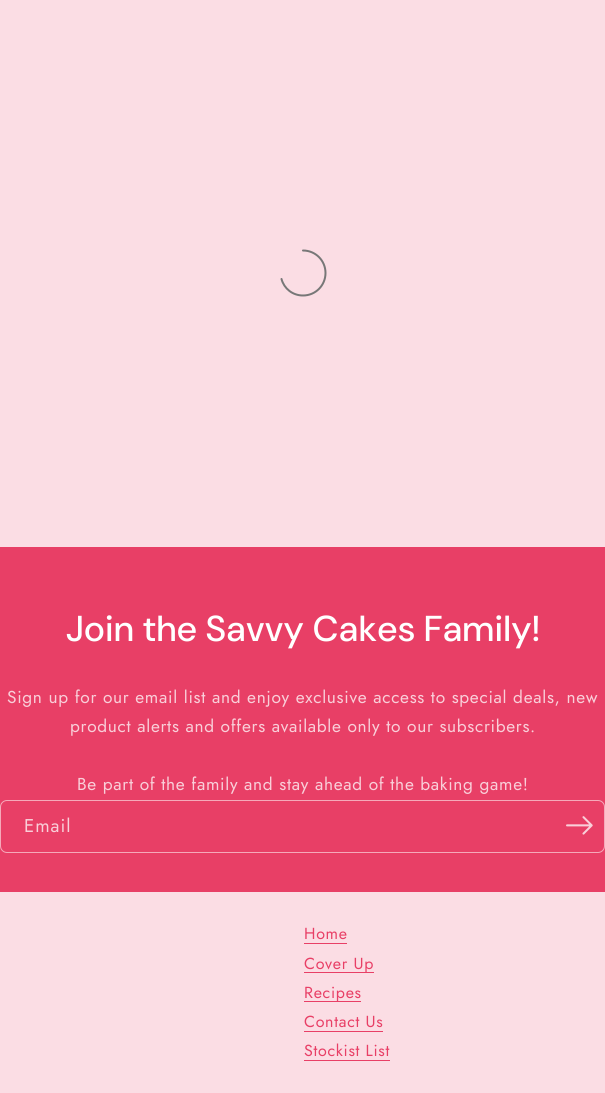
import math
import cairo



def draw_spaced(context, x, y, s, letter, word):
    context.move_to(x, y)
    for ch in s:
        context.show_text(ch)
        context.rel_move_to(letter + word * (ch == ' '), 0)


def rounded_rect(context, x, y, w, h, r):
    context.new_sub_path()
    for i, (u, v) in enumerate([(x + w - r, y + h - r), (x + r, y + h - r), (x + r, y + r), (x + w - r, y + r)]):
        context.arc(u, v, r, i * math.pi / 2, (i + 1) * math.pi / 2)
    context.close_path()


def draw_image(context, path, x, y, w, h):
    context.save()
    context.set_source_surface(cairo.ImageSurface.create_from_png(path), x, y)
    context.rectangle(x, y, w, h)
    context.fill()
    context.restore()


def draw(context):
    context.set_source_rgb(251 / 255, 221 / 255, 228 / 255)
    context.paint()
    context.new_path()
    context.move_to(303, 250.5)
    context.curve_to(315.5, 250.5, 325.5, 260.5, 325.5, 273)
    context.curve_to(325.5, 285.5, 315.5, 295.5, 303, 295.5)
    context.curve_to(292.5, 295.5, 284, 288.5, 281.5, 279)
    context.set_source_rgb(119 / 255, 119 / 255, 119 / 255)
    context.set_line_cap(cairo.LineCap.ROUND)
    context.stroke()
    context.set_source_rgb(232 / 255, 63 / 255, 102 / 255)
    context.rectangle(0, 547, 605, 345)
    context.fill()
    draw_image(context, "images/1.png", 566, 816, 27, 19)
    rounded_rect(context, 0.5, 800.5, 604, 52, 6.5)
    context.set_source_rgb(245 / 255, 169 / 255, 186 / 255)
    context.set_line_width(1)
    context.set_line_cap(cairo.LineCap.BUTT)
    context.stroke()
    context.set_source_rgb(232 / 255, 63 / 255, 102 / 255)
    context.rectangle(304, 943, 43, 1)
    context.fill()
    context.rectangle(304, 972, 70, 1)
    context.fill()
    context.rectangle(304, 1001, 57, 1)
    context.fill()
    context.rectangle(304, 1031, 79, 1)
    context.fill()
    context.rectangle(304, 1060, 86, 1)
    context.fill()
    context.select_font_face("DM Sans Medium")
    context.set_font_size(36)
    context.set_source_rgb(1, 1, 1)
    draw_spaced(context, 66, 641, "Join the Savvy Cakes Family!", 0.75, 0)
    context.select_font_face("Jost")
    context.set_font_size(17.25)
    context.set_source_rgb(249 / 255, 207 / 255, 217 / 255)
    draw_spaced(context, 7, 703, "Sign up for our email list and enjoy exclusive access to special deals, new", 0.7, 0)
    draw_spaced(context, 70, 732, "product alerts and offers available only to our subscribers.", 0.7, 0)
    draw_spaced(context, 77, 790, "Be part of the family and stay ahead of the baking game!", 0.7, 0)
    context.set_font_size(18.5)
    draw_spaced(context, 24, 832, "Email", 1, 0)
    context.set_font_size(16)
    context.set_source_rgb(232 / 255, 63 / 255, 102 / 255)
    draw_spaced(context, 304, 939, "Home", 0.7, 0)
    draw_spaced(context, 304, 969, "Cover Up", 0.7, 0)
    draw_spaced(context, 304, 998, "Recipes", 0.7, 0)
    draw_spaced(context, 304, 1027, "Contact Us", 0.7, 0)
    draw_spaced(context, 304, 1056, "Stockist List", 0.7, 0)


surface = cairo.ImageSurface(cairo.Format.RGB24, 605, 1093)
context = cairo.Context(surface)
options = cairo.FontOptions()
options.set_hint_metrics(cairo.HintMetrics.OFF)
options.set_hint_style(cairo.HintStyle.NONE)
context.set_font_options(options)
context.set_miter_limit(4)
draw(context)
surface.write_to_png("out.png")
